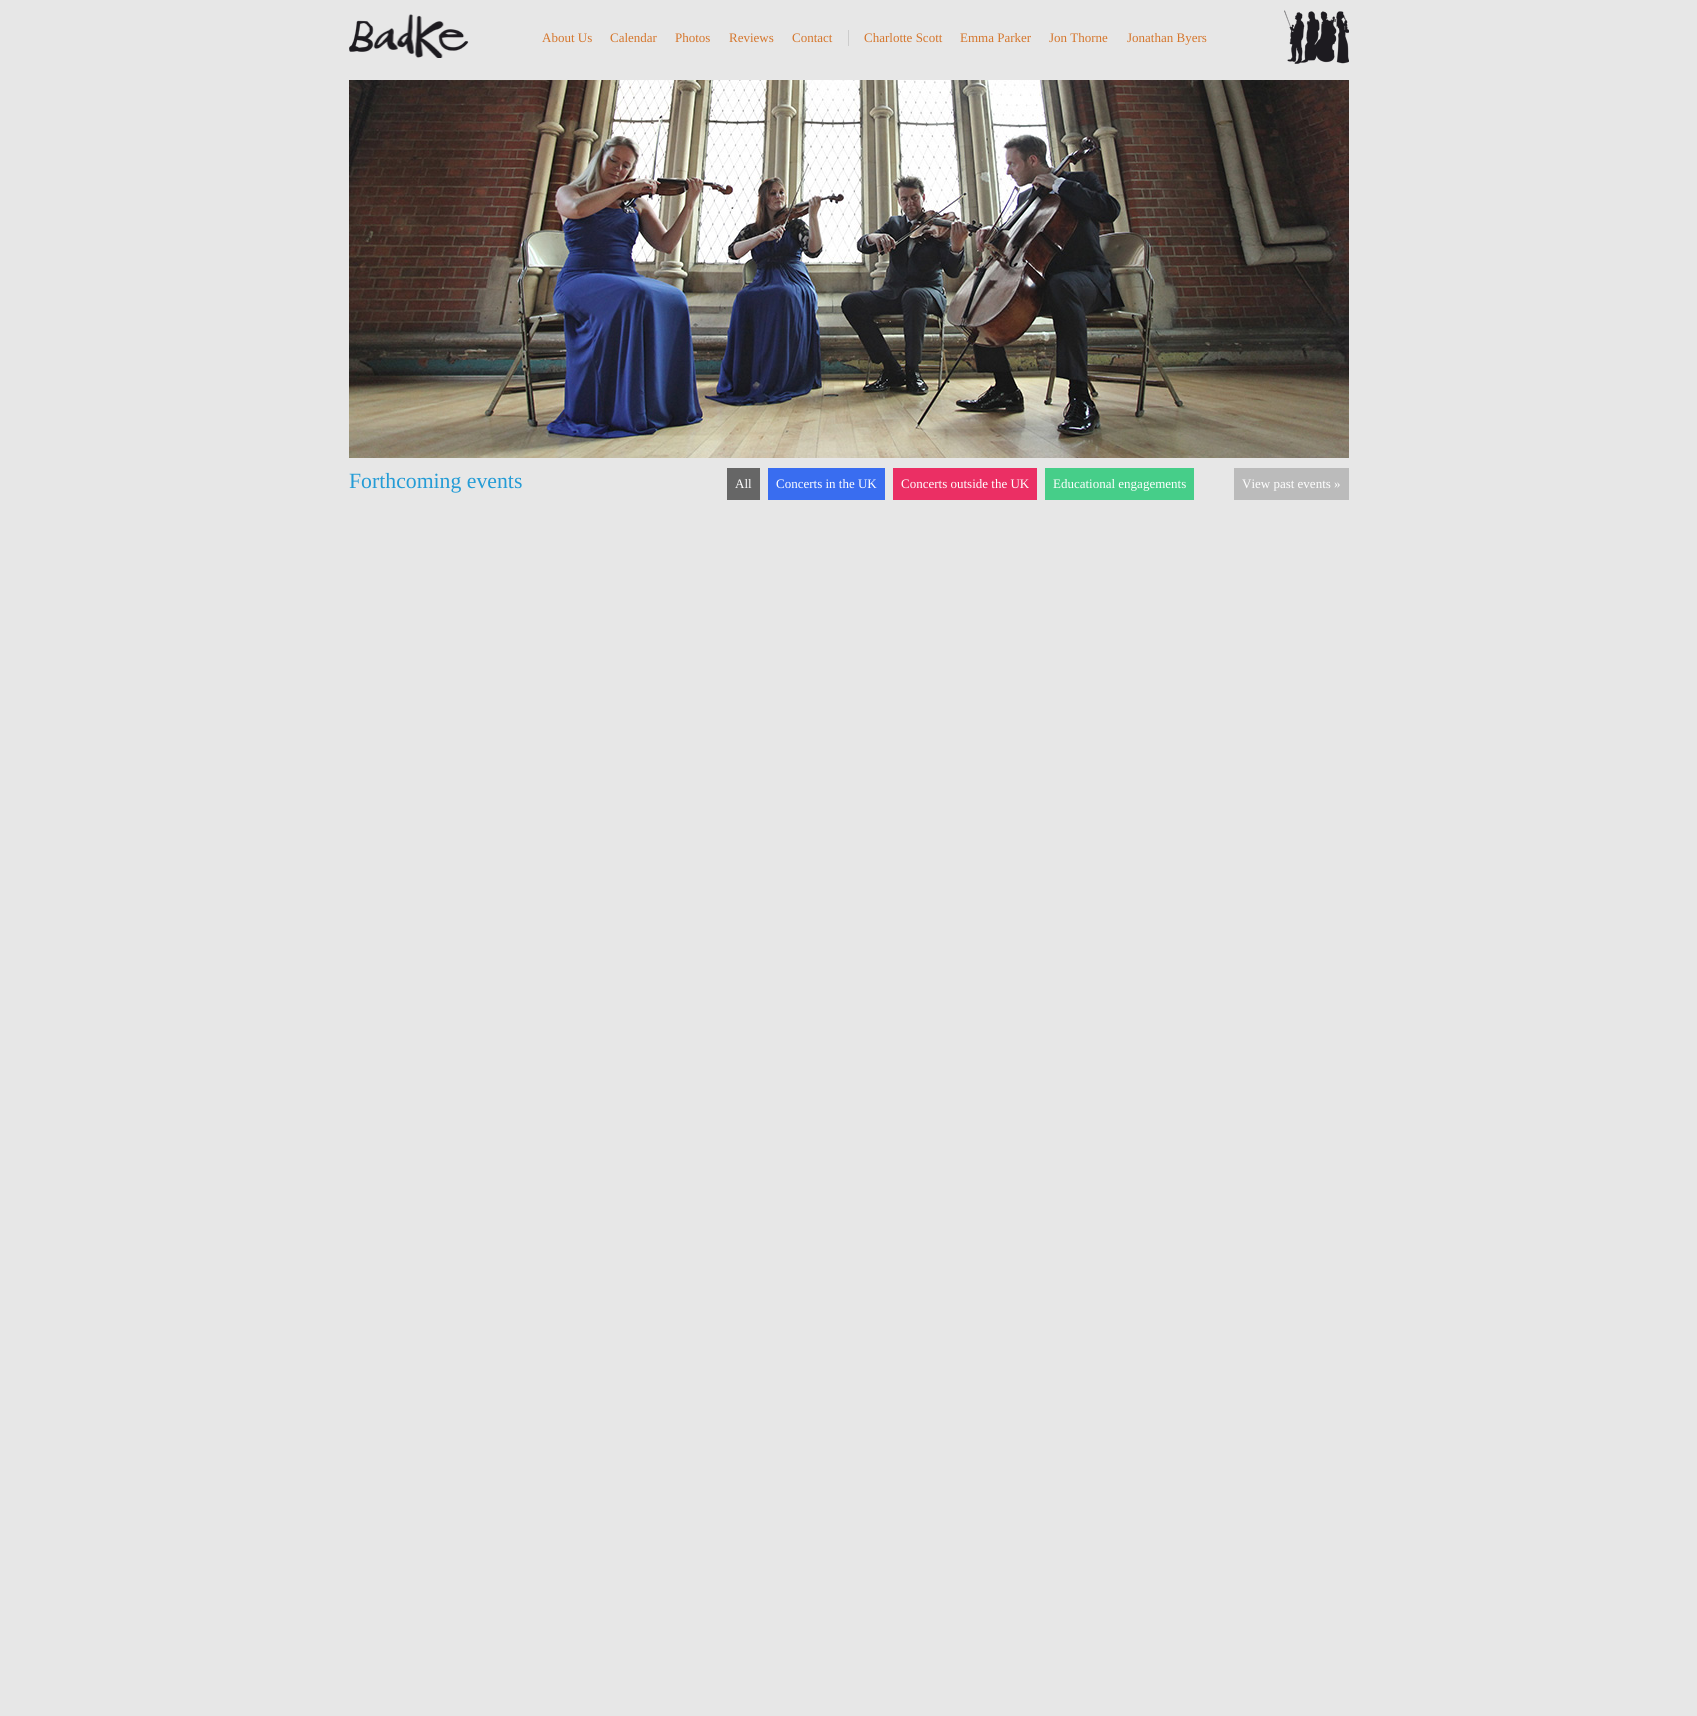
import math
import cairo



def draw_image(context, path, x, y, w, h):
    context.save()
    context.set_source_surface(cairo.ImageSurface.create_from_png(path), x, y)
    context.rectangle(x, y, w, h)
    context.fill()
    context.restore()


def draw(context):
    context.set_source_rgb(231 / 255, 231 / 255, 231 / 255)
    context.paint()
    draw_image(context, "images/1.png", 349, 14, 120, 44)
    context.set_source_rgb(204 / 255, 204 / 255, 204 / 255)
    context.rectangle(848, 30, 1, 16)
    context.fill()
    draw_image(context, "images/2.png", 1284, 10, 65, 54)
    draw_image(context, "images/3.png", 349, 80, 1000, 378)
    context.set_source_rgb(102 / 255, 102 / 255, 102 / 255)
    context.rectangle(727, 468, 33, 32)
    context.fill()
    context.set_source_rgb(57 / 255, 109 / 255, 240 / 255)
    context.rectangle(768, 468, 117, 32)
    context.fill()
    context.set_source_rgb(235 / 255, 47 / 255, 100 / 255)
    context.rectangle(893, 468, 144, 32)
    context.fill()
    context.set_source_rgb(70 / 255, 206 / 255, 137 / 255)
    context.rectangle(1045, 468, 149, 32)
    context.fill()
    context.set_source_rgb(187 / 255, 187 / 255, 187 / 255)
    context.rectangle(1234, 468, 115, 32)
    context.fill()
    context.select_font_face("Liberation Serif")
    context.set_font_size(13)
    context.set_source_rgb(213 / 255, 118 / 255, 44 / 255)
    context.move_to(542, 42)
    context.show_text("About Us")
    context.move_to(610, 42)
    context.show_text("Calendar")
    context.move_to(675, 42)
    context.show_text("Photos")
    context.move_to(729, 42)
    context.show_text("Reviews")
    context.move_to(792, 42)
    context.show_text("Contact")
    context.move_to(864, 42)
    context.show_text("Charlotte Scott")
    context.move_to(960, 42)
    context.show_text("Emma Parker")
    context.move_to(1049, 42)
    context.show_text("Jon Thorne")
    context.move_to(1127, 42)
    context.show_text("Jonathan Byers")
    context.set_font_size(21.75)
    context.set_source_rgb(36 / 255, 156 / 255, 214 / 255)
    context.move_to(349, 488)
    context.show_text("Forthcoming events")
    context.set_font_size(13)
    context.set_source_rgb(1, 1, 1)
    context.move_to(735, 488)
    context.show_text("All")
    context.move_to(776, 488)
    context.show_text("Concerts in the UK")
    context.move_to(901, 488)
    context.show_text("Concerts outside the UK")
    context.move_to(1053, 488)
    context.show_text("Educational engagements")
    context.move_to(1242, 488)
    context.show_text("View past events »")


surface = cairo.ImageSurface(cairo.Format.RGB24, 1697, 1716)
context = cairo.Context(surface)
options = cairo.FontOptions()
options.set_hint_metrics(cairo.HintMetrics.OFF)
options.set_hint_style(cairo.HintStyle.NONE)
context.set_font_options(options)
context.set_miter_limit(4)
draw(context)
surface.write_to_png("out.png")
